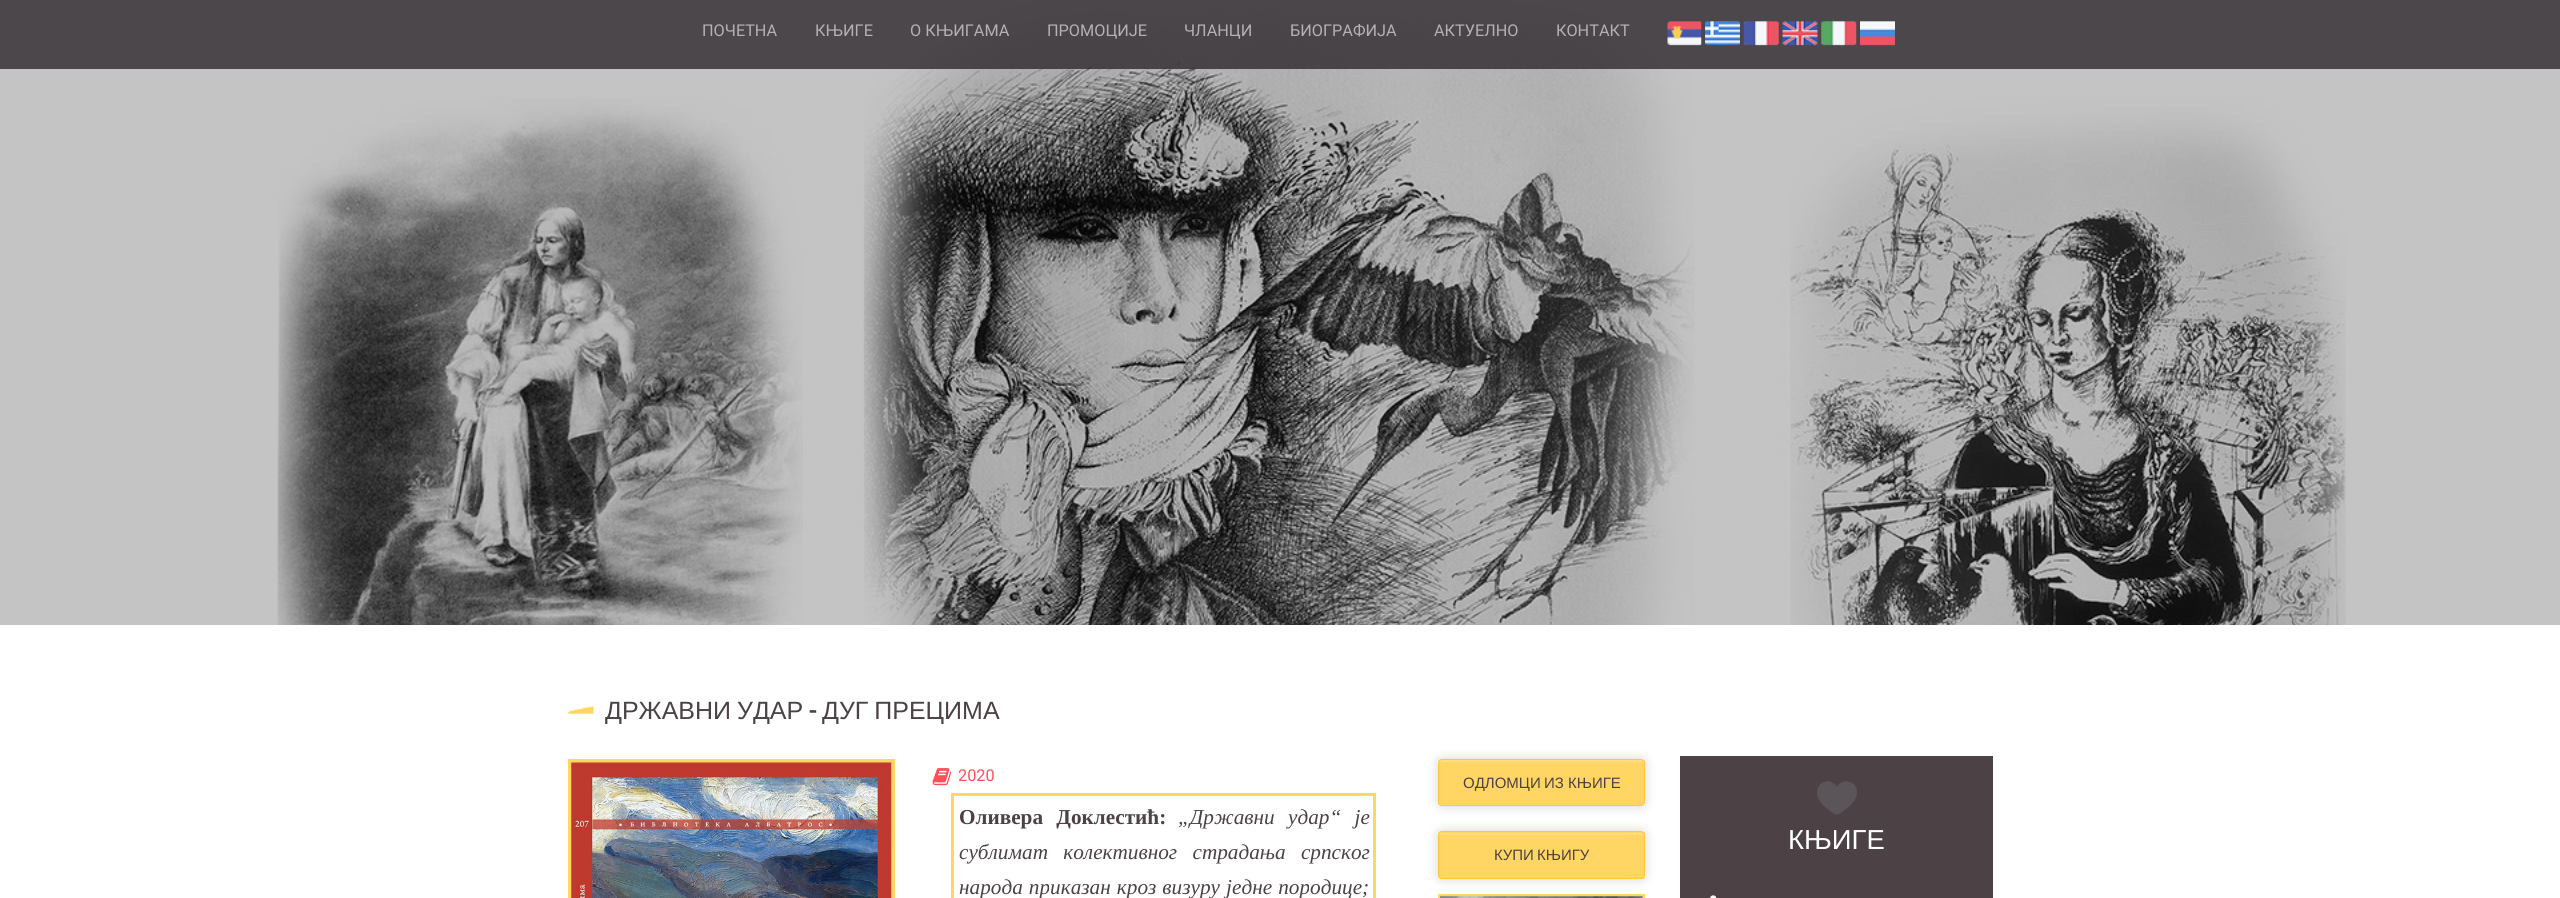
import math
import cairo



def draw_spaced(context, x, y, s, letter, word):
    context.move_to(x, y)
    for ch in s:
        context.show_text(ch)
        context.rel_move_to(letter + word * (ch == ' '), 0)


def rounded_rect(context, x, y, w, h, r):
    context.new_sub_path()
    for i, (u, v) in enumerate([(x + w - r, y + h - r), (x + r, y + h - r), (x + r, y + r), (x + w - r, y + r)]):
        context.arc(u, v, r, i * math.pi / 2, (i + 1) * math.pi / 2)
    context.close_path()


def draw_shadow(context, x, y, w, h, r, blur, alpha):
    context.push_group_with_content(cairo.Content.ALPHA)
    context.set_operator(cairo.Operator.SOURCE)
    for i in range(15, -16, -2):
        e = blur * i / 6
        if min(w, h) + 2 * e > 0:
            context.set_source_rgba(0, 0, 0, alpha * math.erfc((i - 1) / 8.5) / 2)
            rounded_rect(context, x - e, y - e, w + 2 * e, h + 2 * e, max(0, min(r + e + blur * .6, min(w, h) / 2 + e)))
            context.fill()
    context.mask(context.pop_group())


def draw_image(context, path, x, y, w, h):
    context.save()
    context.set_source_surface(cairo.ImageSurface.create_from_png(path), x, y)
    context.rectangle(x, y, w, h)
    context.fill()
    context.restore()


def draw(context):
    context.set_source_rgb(1, 1, 1)
    context.paint()
    draw_image(context, "images/1.png", 0, 0, 2560, 625)
    context.set_source_rgba(46 / 255, 41 / 255, 46 / 255, 0.8)
    context.rectangle(0, 0, 2560, 69)
    context.fill()
    draw_image(context, "images/2.png", 1667, 21, 35, 25)
    draw_image(context, "images/3.png", 1705, 21, 35, 25)
    draw_image(context, "images/4.png", 1743, 21, 36, 25)
    draw_image(context, "images/5.png", 1782, 21, 36, 25)
    draw_image(context, "images/6.png", 1821, 21, 36, 25)
    draw_image(context, "images/7.png", 1860, 21, 35, 25)
    draw_image(context, "images/8.png", 567, 706, 27, 8)
    context.rectangle(570, 761, 323, 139)
    context.set_source_rgb(1, 213 / 255, 100 / 255)
    context.set_line_width(4)
    context.stroke()
    draw_image(context, "images/9.png", 571, 762, 321, 136)
    draw_image(context, "images/10.png", 932, 768, 20, 18)
    context.rectangle(952.5, 794.5, 422, 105)
    context.set_line_width(3)
    context.stroke()
    context.set_source_rgb(0, 0, 0)
    draw_shadow(context, 1438, 759, 207, 47, 4, 6, 0.16)
    context.set_source_rgb(1, 213 / 255, 100 / 255)
    rounded_rect(context, 1438, 759, 207, 47, 4)
    context.fill()
    context.set_source_rgb(1, 221 / 255, 131 / 255)
    context.new_path()
    context.move_to(1441, 762)
    context.line_to(1641, 762)
    context.curve_to(1643, 762, 1644, 764, 1644, 765)
    context.curve_to(1644, 763, 1644, 760, 1642, 760)
    context.line_to(1442, 760)
    context.curve_to(1439, 760, 1439, 763, 1439, 765)
    context.curve_to(1439, 764, 1440, 762, 1441, 762)
    context.close_path()
    context.fill()
    rounded_rect(context, 1438.5, 759.5, 206, 46, 3.5)
    context.set_source_rgb(1, 201 / 255, 54 / 255)
    context.set_line_width(1)
    context.stroke()
    context.set_source_rgb(0, 0, 0)
    draw_shadow(context, 1438, 831, 207, 48, 4, 6, 0.16)
    context.set_source_rgb(1, 213 / 255, 100 / 255)
    rounded_rect(context, 1438, 831, 207, 48, 4)
    context.fill()
    context.set_source_rgb(1, 221 / 255, 131 / 255)
    context.new_path()
    context.move_to(1441, 835)
    context.line_to(1641, 835)
    context.curve_to(1643, 835, 1644, 836, 1644, 838)
    context.curve_to(1644, 836, 1644, 833, 1642, 833)
    context.line_to(1442, 833)
    context.curve_to(1439, 833, 1439, 836, 1439, 838)
    context.curve_to(1439, 836, 1440, 835, 1441, 835)
    context.close_path()
    context.fill()
    rounded_rect(context, 1438.5, 831.5, 206, 47, 3.5)
    context.set_source_rgb(1, 201 / 255, 54 / 255)
    context.stroke()
    context.rectangle(1439.5, 895.5, 204, 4)
    context.set_source_rgb(1, 213 / 255, 100 / 255)
    context.set_line_width(3)
    context.stroke()
    draw_image(context, "images/11.png", 1440, 896, 203, 2)
    context.set_source_rgb(76 / 255, 65 / 255, 69 / 255)
    context.rectangle(1680, 756, 313, 142)
    context.fill()
    context.set_source_rgb(91 / 255, 84 / 255, 88 / 255)
    context.new_path()
    context.move_to(1857, 792)
    context.curve_to(1857, 781, 1842, 777, 1837, 787)
    context.curve_to(1829, 773, 1806, 787, 1823, 805)
    context.curve_to(1827, 809, 1832, 813, 1837, 815)
    context.curve_to(1837, 815, 1857, 805, 1857, 792)
    context.close_path()
    context.fill()
    draw_image(context, "images/12.png", 1710, 895, 7, 3)
    context.select_font_face("Roboto")
    context.set_font_size(16.25)
    context.set_source_rgb(180 / 255, 177 / 255, 178 / 255)
    context.move_to(702, 36)
    context.show_text("ПОЧЕТНА")
    context.move_to(815, 36)
    context.show_text("КЊИГЕ")
    context.move_to(910, 36)
    context.show_text("О КЊИГАМА")
    context.move_to(1047, 36)
    context.show_text("ПРОМОЦИЈЕ")
    context.move_to(1184, 36)
    context.show_text("ЧЛАНЦИ")
    context.move_to(1290, 36)
    context.show_text("БИОГРАФИЈА")
    context.move_to(1434, 36)
    context.show_text("АКТУЕЛНО")
    context.move_to(1556, 36)
    context.show_text("КОНТАКТ")
    context.select_font_face("Liberation Sans")
    context.set_font_size(25)
    context.set_source_rgb(76 / 255, 65 / 255, 69 / 255)
    draw_spaced(context, 605, 719, "ДРЖАВНИ УДАР", 0, -1)
    context.select_font_face("Aleo", cairo.FontSlant.NORMAL, cairo.FontWeight.BOLD)
    context.move_to(809, 719)
    context.show_text("-")
    context.select_font_face("Liberation Sans")
    draw_spaced(context, 822, 719, "ДУГ ПРЕЦИМА", 0, -1)
    context.select_font_face("Roboto")
    context.set_font_size(16.25)
    context.set_source_rgb(254 / 255, 80 / 255, 90 / 255)
    context.move_to(958, 781)
    context.show_text("2020")
    context.select_font_face("Liberation Serif", cairo.FontSlant.NORMAL, cairo.FontWeight.BOLD)
    context.set_font_size(21.25)
    context.set_source_rgb(76 / 255, 65 / 255, 69 / 255)
    draw_spaced(context, 959, 824, "Оливера Доклестић:", 0, 8)
    context.select_font_face("Liberation Serif", cairo.FontSlant.ITALIC)
    draw_spaced(context, 1178, 824, "„Државни удар“ је", 0, 8)
    draw_spaced(context, 959, 859, "сублимат колективног страдања српског", 0, 10)
    draw_spaced(context, 959, 894, "народа приказан кроз визуру једне породице;", 0, 0.75)
    context.select_font_face("Liberation Sans")
    context.set_font_size(15)
    draw_spaced(context, 1463, 788, "ОДЛОМЦИ ИЗ", 0, -1)
    context.move_to(1568, 788)
    context.show_text("КЊИГЕ")
    context.move_to(1494, 860)
    context.show_text("КУПИ")
    context.move_to(1537, 860)
    context.show_text("КЊИГУ")
    context.set_font_size(27.5)
    context.set_source_rgb(1, 1, 1)
    context.move_to(1788, 849)
    context.show_text("КЊИГЕ")


surface = cairo.ImageSurface(cairo.Format.RGB24, 2560, 898)
context = cairo.Context(surface)
options = cairo.FontOptions()
options.set_hint_metrics(cairo.HintMetrics.OFF)
options.set_hint_style(cairo.HintStyle.NONE)
context.set_font_options(options)
context.set_miter_limit(4)
draw(context)
surface.write_to_png("out.png")
